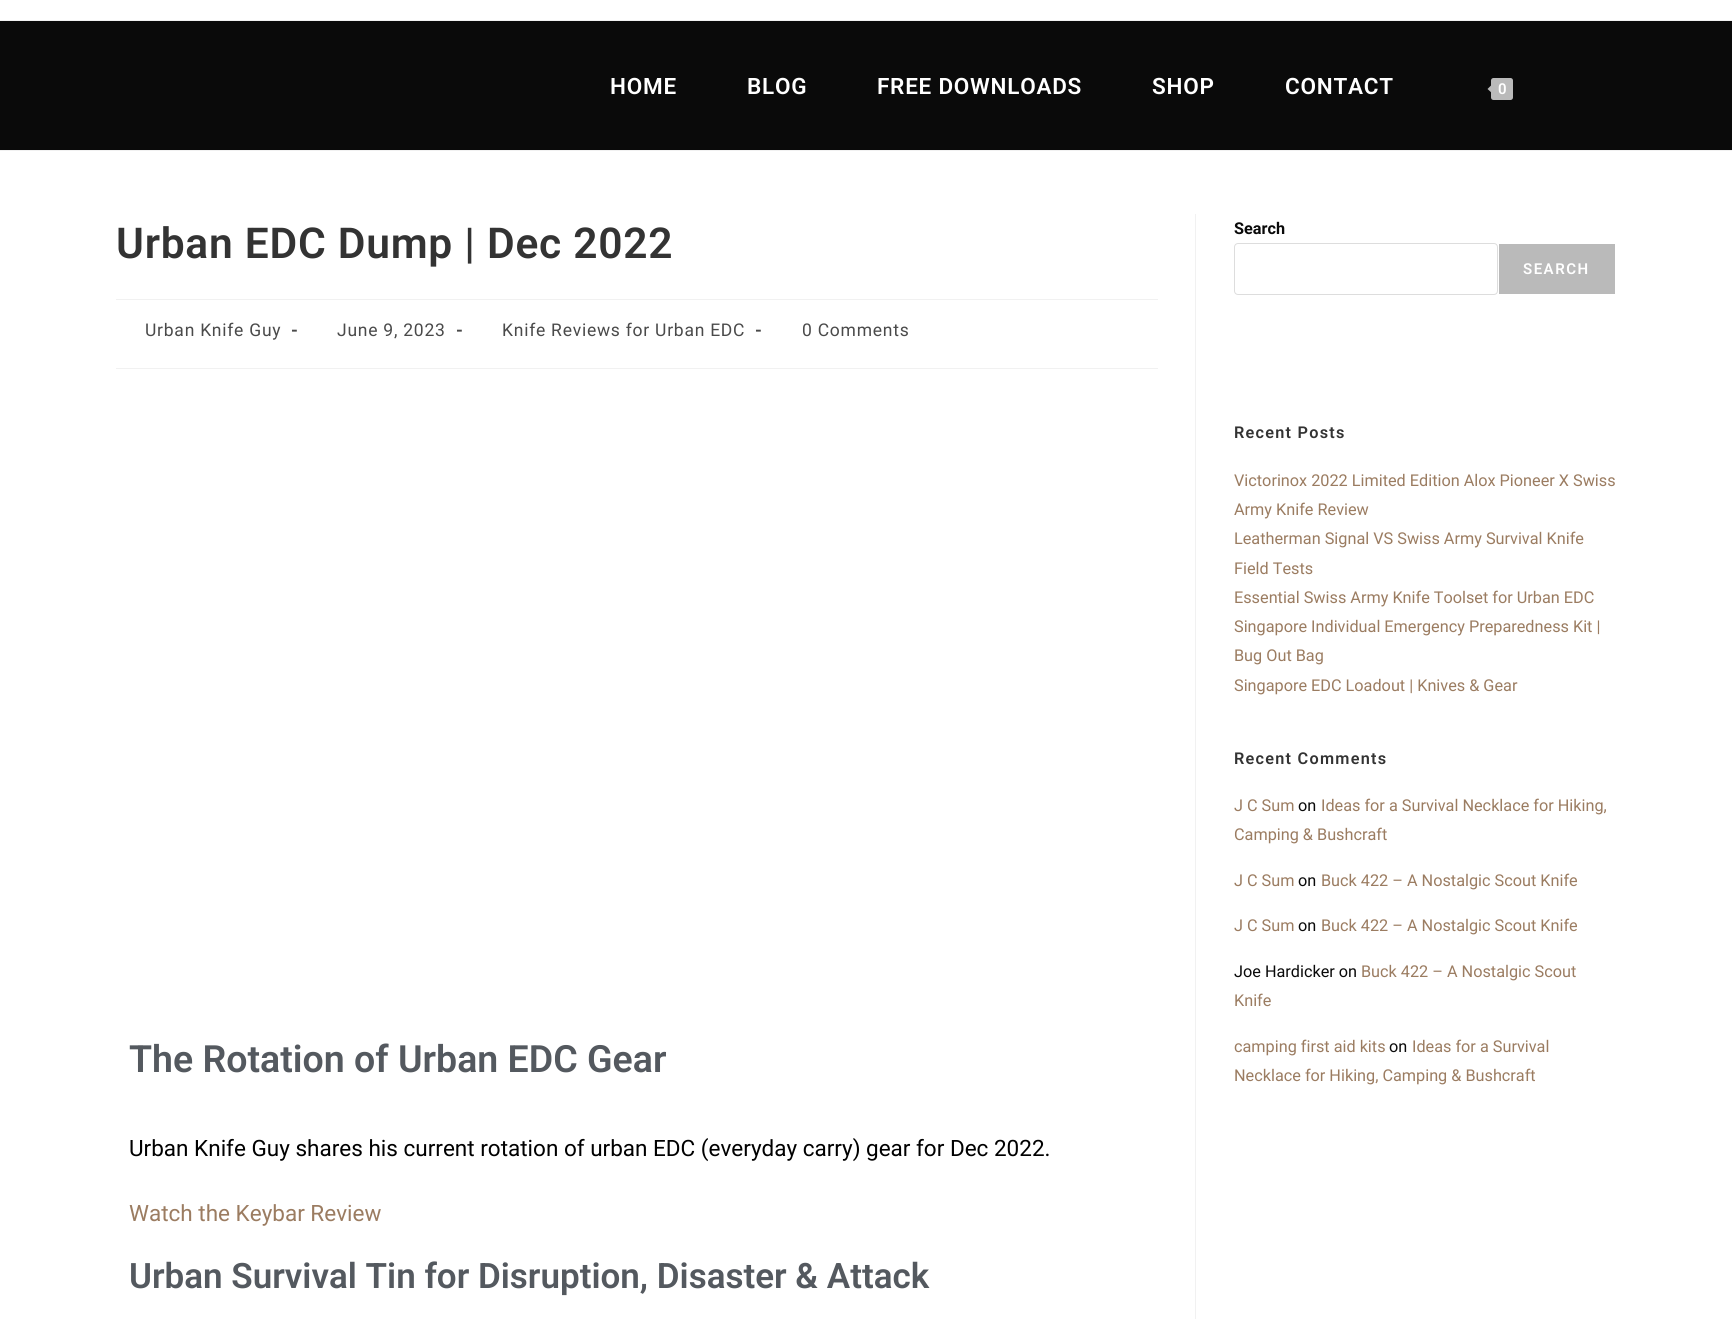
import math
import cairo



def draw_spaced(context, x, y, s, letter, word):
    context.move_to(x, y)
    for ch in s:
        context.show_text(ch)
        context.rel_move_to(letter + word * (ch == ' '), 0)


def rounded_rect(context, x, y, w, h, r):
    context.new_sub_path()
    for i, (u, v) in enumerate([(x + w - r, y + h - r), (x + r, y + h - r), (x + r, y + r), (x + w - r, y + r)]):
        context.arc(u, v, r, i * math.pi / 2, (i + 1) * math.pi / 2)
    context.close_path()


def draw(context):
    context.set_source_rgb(1, 1, 1)
    context.paint()
    context.set_source_rgb(241 / 255, 241 / 255, 241 / 255)
    context.rectangle(0, 20, 1732, 1)
    context.fill()
    context.set_source_rgb(10 / 255, 10 / 255, 10 / 255)
    context.rectangle(0, 21, 1732, 129)
    context.fill()
    context.set_source_rgb(241 / 255, 241 / 255, 241 / 255)
    context.rectangle(0, 150, 1732, 1)
    context.fill()
    context.set_source_rgb(186 / 255, 186 / 255, 186 / 255)
    rounded_rect(context, 1491, 78, 22, 22, 2.5)
    context.fill()
    context.new_path()
    context.move_to(1494, 82.5)
    context.line_to(1494, 95)
    context.line_to(1487.5, 89)
    context.close_path()
    context.fill()
    context.set_source_rgb(241 / 255, 241 / 255, 241 / 255)
    context.rectangle(1195, 214, 1, 1105)
    context.fill()
    context.rectangle(116, 299, 1042, 1)
    context.fill()
    context.rectangle(116, 368, 1042, 1)
    context.fill()
    rounded_rect(context, 1234.5, 243.5, 263, 51, 3.5)
    context.set_source_rgb(221 / 255, 221 / 255, 221 / 255)
    context.set_line_width(1)
    context.stroke()
    context.set_source_rgb(186 / 255, 186 / 255, 186 / 255)
    context.rectangle(1499, 244, 116, 50)
    context.fill()
    context.select_font_face("Roboto SemiBold")
    context.set_font_size(22.5)
    context.set_source_rgb(1, 1, 1)
    draw_spaced(context, 610, 94, "HOME", 0.75, 0)
    draw_spaced(context, 747, 94, "BLOG", 0.75, 0)
    draw_spaced(context, 877, 94, "FREE DOWNLOADS", 0.75, 0)
    draw_spaced(context, 1152, 94, "SHOP", 0.75, 0)
    draw_spaced(context, 1285, 94, "CONTACT", 0.75, 0)
    context.set_font_size(15)
    context.move_to(1498, 94)
    context.show_text("0")
    context.set_font_size(42.5)
    context.set_source_rgb(51 / 255, 51 / 255, 51 / 255)
    draw_spaced(context, 116, 258, "Urban EDC Dump | Dec 2022", 0.75, 0)
    context.select_font_face("Roboto")
    context.set_font_size(17.5)
    context.set_source_rgb(74 / 255, 74 / 255, 74 / 255)
    draw_spaced(context, 145, 336, "Urban Knife Guy", 0.75, 0)
    context.select_font_face("Roboto", cairo.FontSlant.NORMAL, cairo.FontWeight.BOLD)
    draw_spaced(context, 291, 336, "-", 0.75, 0)
    context.select_font_face("Roboto")
    draw_spaced(context, 337, 336, "June 9, 2023", 0.75, 0)
    context.select_font_face("Roboto", cairo.FontSlant.NORMAL, cairo.FontWeight.BOLD)
    draw_spaced(context, 456, 336, "-", 0.75, 0)
    context.select_font_face("Roboto")
    draw_spaced(context, 502, 336, "Knife Reviews for Urban EDC", 0.75, 0)
    context.select_font_face("Roboto", cairo.FontSlant.NORMAL, cairo.FontWeight.BOLD)
    draw_spaced(context, 755, 336, "-", 0.75, 0)
    context.select_font_face("Roboto")
    draw_spaced(context, 802, 336, "0 Comments", 0.75, 0)
    context.select_font_face("Roboto SemiBold")
    context.set_font_size(37.5)
    context.set_source_rgb(84 / 255, 89 / 255, 95 / 255)
    context.move_to(129, 1072)
    context.show_text("The Rotation of Urban EDC Gear")
    context.select_font_face("Roboto")
    context.set_font_size(22.5)
    context.set_source_rgb(0, 0, 0)
    context.move_to(129, 1156)
    context.show_text("Urban Knife Guy shares his current rotation of urban EDC (everyday carry) gear for Dec 2022.")
    context.set_source_rgb(155 / 255, 124 / 255, 97 / 255)
    context.move_to(129, 1221)
    context.show_text("Watch the Keybar Review")
    context.select_font_face("Roboto SemiBold")
    context.set_font_size(35)
    context.set_source_rgb(84 / 255, 89 / 255, 95 / 255)
    context.move_to(129, 1288)
    context.show_text("Urban Survival Tin for Disruption, Disaster & Attack")
    context.select_font_face("Roboto", cairo.FontSlant.NORMAL, cairo.FontWeight.BOLD)
    context.set_font_size(16.25)
    context.set_source_rgb(10 / 255, 10 / 255, 10 / 255)
    context.move_to(1234, 234)
    context.show_text("Search")
    context.select_font_face("Roboto SemiBold")
    context.set_font_size(15)
    context.set_source_rgb(1, 1, 1)
    draw_spaced(context, 1523, 274, "SEARCH", 1.5, 0)
    context.set_font_size(16.25)
    context.set_source_rgb(51 / 255, 51 / 255, 51 / 255)
    draw_spaced(context, 1234, 438, "Recent Posts", 1.25, 0)
    context.select_font_face("Roboto")
    context.set_source_rgb(155 / 255, 124 / 255, 97 / 255)
    context.move_to(1234, 486)
    context.show_text("Victorinox 2022 Limited Edition Alox Pioneer X Swiss")
    context.move_to(1234, 515)
    context.show_text("Army Knife Review")
    context.move_to(1234, 544)
    context.show_text("Leatherman Signal VS Swiss Army Survival Knife")
    context.move_to(1234, 574)
    context.show_text("Field Tests")
    context.move_to(1234, 603)
    context.show_text("Essential Swiss Army Knife Toolset for Urban EDC")
    context.move_to(1234, 632)
    context.show_text("Singapore Individual Emergency Preparedness Kit |")
    context.move_to(1234, 661)
    context.show_text("Bug Out Bag")
    context.move_to(1234, 691)
    context.show_text("Singapore EDC Loadout | Knives & Gear")
    context.select_font_face("Roboto SemiBold")
    context.set_source_rgb(51 / 255, 51 / 255, 51 / 255)
    draw_spaced(context, 1234, 764, "Recent Comments", 1.25, 0)
    context.select_font_face("Roboto")
    context.set_source_rgb(155 / 255, 124 / 255, 97 / 255)
    context.move_to(1234, 811)
    context.show_text("J C Sum")
    context.set_source_rgb(10 / 255, 10 / 255, 10 / 255)
    context.move_to(1298, 811)
    context.show_text("on")
    context.set_source_rgb(155 / 255, 124 / 255, 97 / 255)
    context.move_to(1321, 811)
    context.show_text("Ideas for a Survival Necklace for Hiking,")
    context.move_to(1234, 840)
    context.show_text("Camping & Bushcraft")
    context.move_to(1234, 886)
    context.show_text("J C Sum")
    context.set_source_rgb(10 / 255, 10 / 255, 10 / 255)
    context.move_to(1298, 886)
    context.show_text("on")
    context.set_source_rgb(155 / 255, 124 / 255, 97 / 255)
    context.move_to(1321, 886)
    context.show_text("Buck 422 – A Nostalgic Scout Knife")
    context.move_to(1234, 931)
    context.show_text("J C Sum")
    context.set_source_rgb(10 / 255, 10 / 255, 10 / 255)
    context.move_to(1298, 931)
    context.show_text("on")
    context.set_source_rgb(155 / 255, 124 / 255, 97 / 255)
    context.move_to(1321, 931)
    context.show_text("Buck 422 – A Nostalgic Scout Knife")
    context.set_source_rgb(10 / 255, 10 / 255, 10 / 255)
    context.move_to(1234, 977)
    context.show_text("Joe Hardicker on")
    context.set_source_rgb(155 / 255, 124 / 255, 97 / 255)
    context.move_to(1361, 977)
    context.show_text("Buck 422 – A Nostalgic Scout")
    context.move_to(1234, 1006)
    context.show_text("Knife")
    context.move_to(1234, 1052)
    context.show_text("camping first aid kits")
    context.set_source_rgb(10 / 255, 10 / 255, 10 / 255)
    context.move_to(1389, 1052)
    context.show_text("on")
    context.set_source_rgb(155 / 255, 124 / 255, 97 / 255)
    context.move_to(1412, 1052)
    context.show_text("Ideas for a Survival")
    context.move_to(1234, 1081)
    context.show_text("Necklace for Hiking, Camping & Bushcraft")


surface = cairo.ImageSurface(cairo.Format.RGB24, 1732, 1319)
context = cairo.Context(surface)
options = cairo.FontOptions()
options.set_hint_metrics(cairo.HintMetrics.OFF)
options.set_hint_style(cairo.HintStyle.NONE)
context.set_font_options(options)
context.set_miter_limit(4)
draw(context)
surface.write_to_png("out.png")
